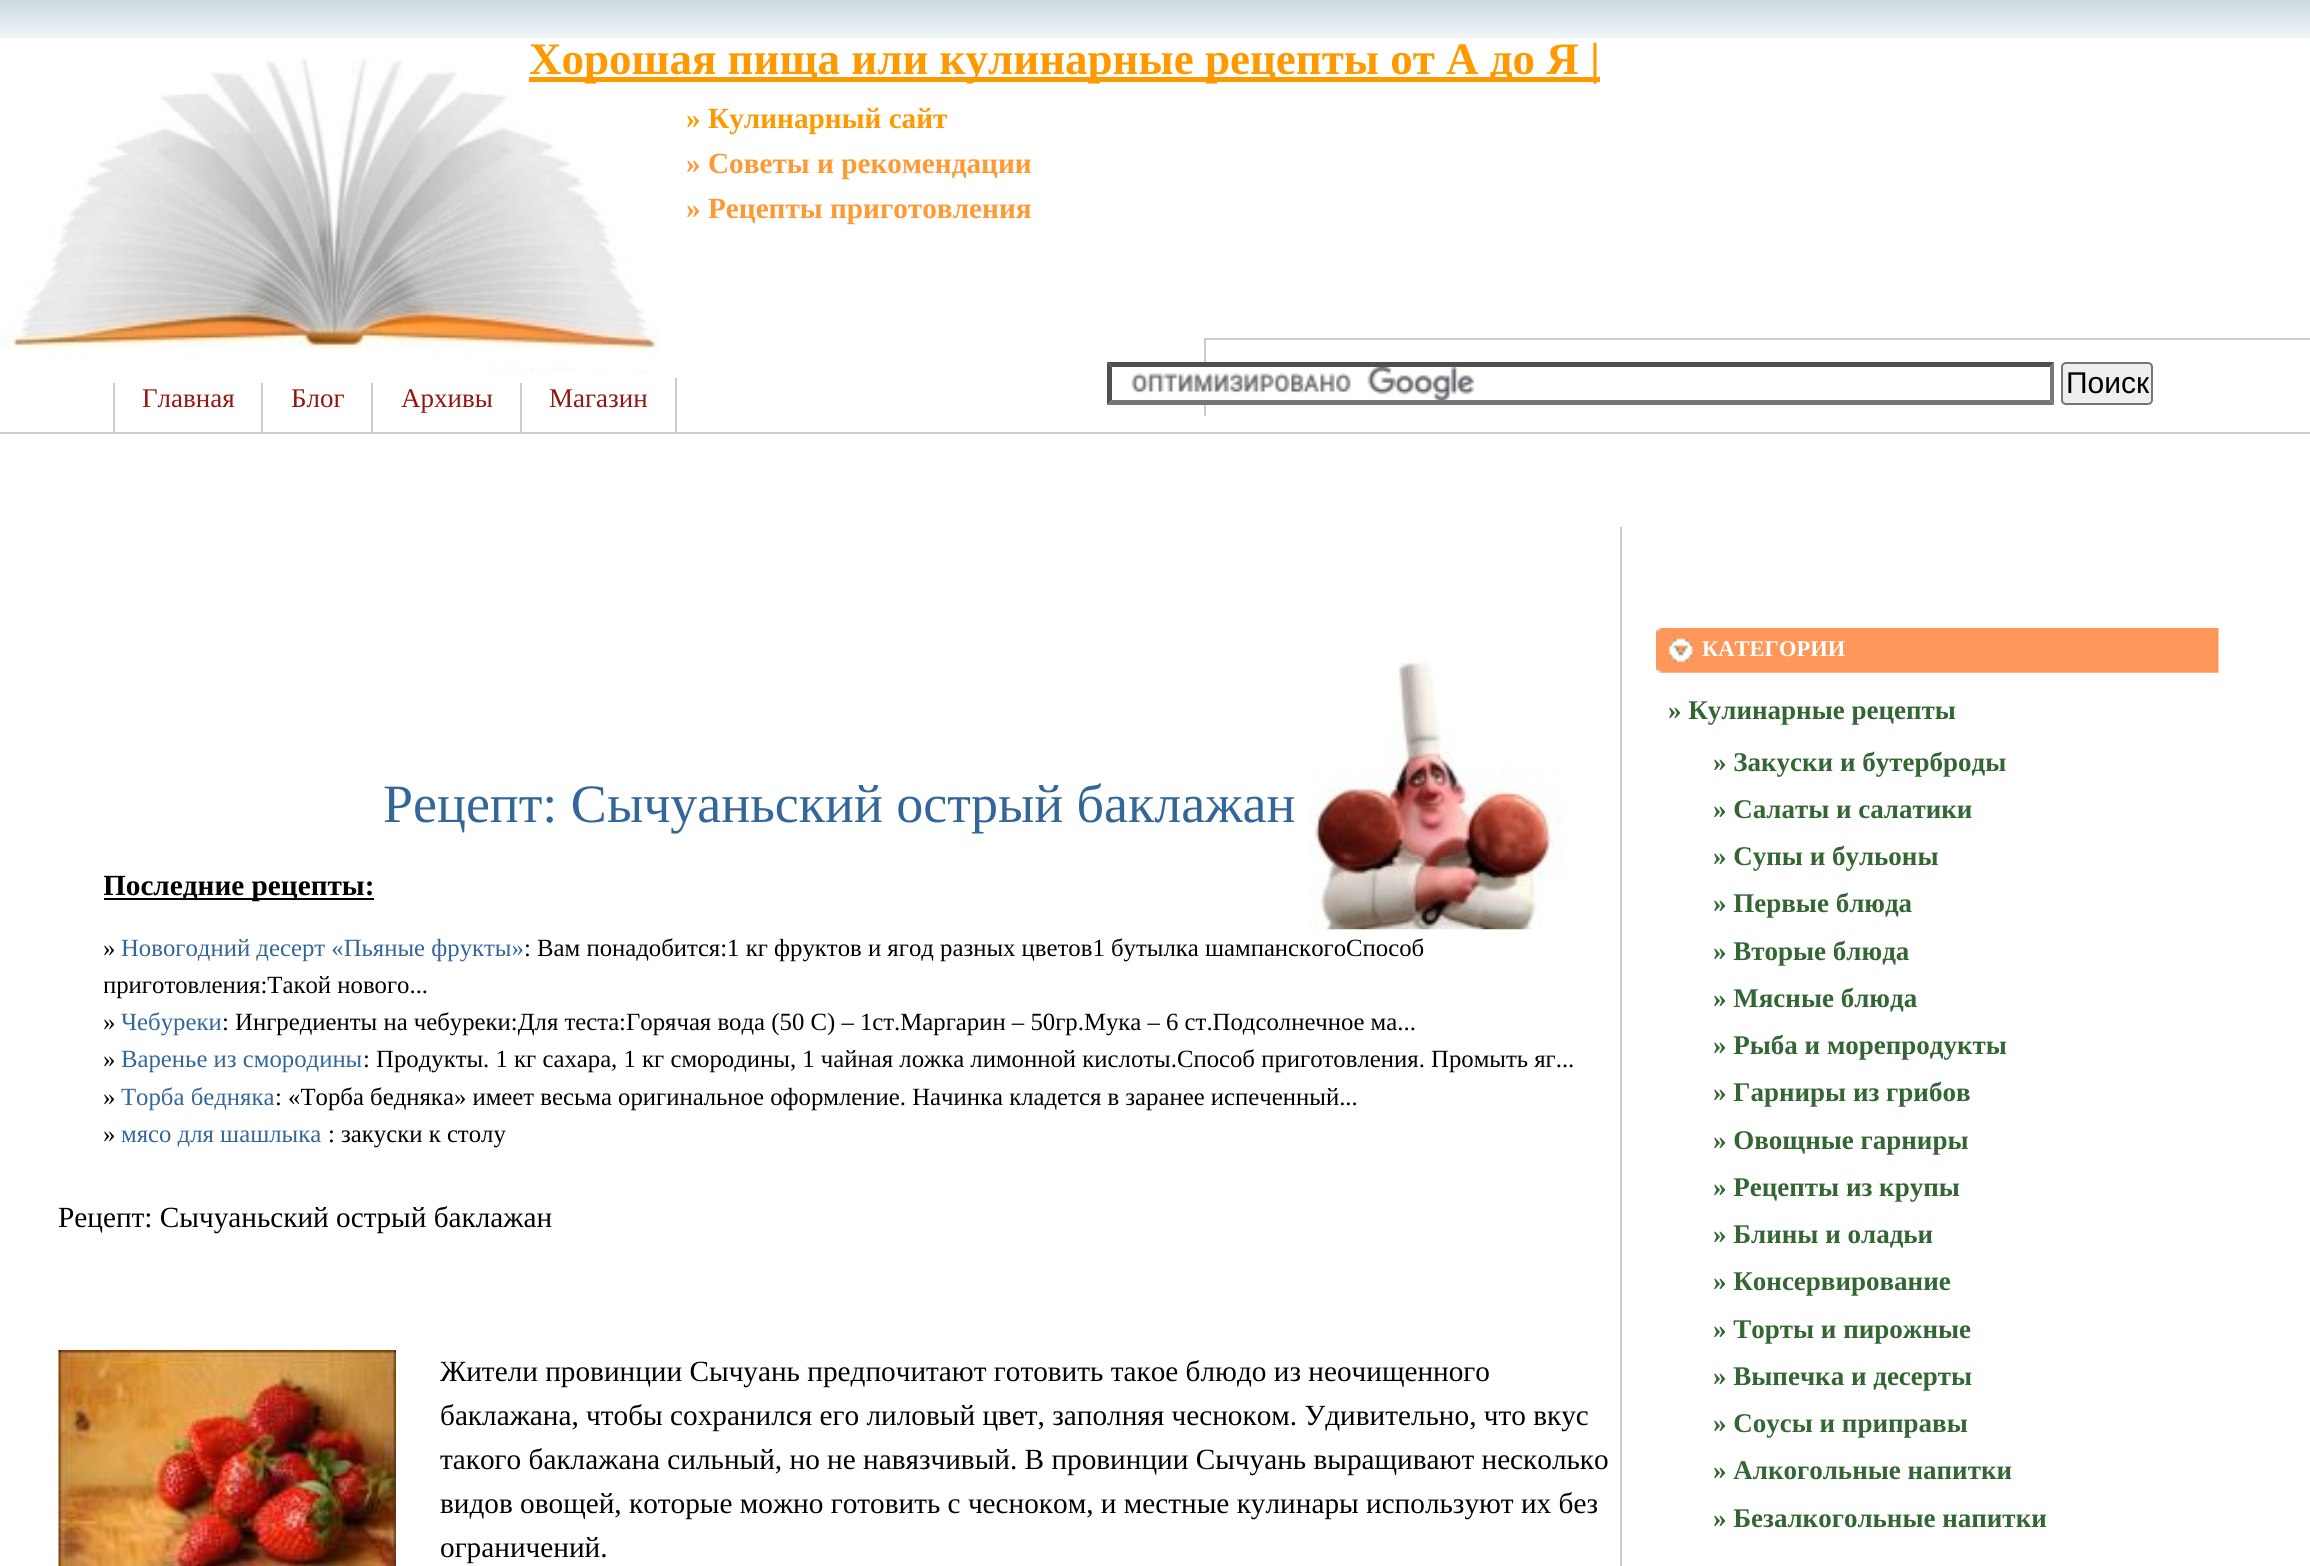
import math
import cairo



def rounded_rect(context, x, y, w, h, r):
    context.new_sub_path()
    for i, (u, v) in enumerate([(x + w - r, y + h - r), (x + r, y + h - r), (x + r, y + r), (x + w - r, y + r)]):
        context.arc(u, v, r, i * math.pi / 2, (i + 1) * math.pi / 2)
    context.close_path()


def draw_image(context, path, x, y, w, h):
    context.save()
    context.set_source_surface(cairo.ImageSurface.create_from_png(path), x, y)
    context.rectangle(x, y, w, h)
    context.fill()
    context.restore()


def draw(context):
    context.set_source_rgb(1, 1, 1)
    context.paint()
    draw_image(context, "images/1.png", 0, 0, 2310, 39)
    draw_image(context, "images/3.png", 0, 58, 661, 316)
    context.set_source_rgb(1, 153 / 255, 0)
    context.rectangle(529, 77, 1071, 5)
    context.fill()
    context.set_source_rgb(204 / 255, 204 / 255, 204 / 255)
    context.rectangle(0, 432, 2310, 2)
    context.fill()
    context.rectangle(1204, 338, 1106, 2)
    context.fill()
    context.rectangle(1204, 338, 2, 78)
    context.fill()
    context.set_source_rgb(1, 1, 1)
    context.rectangle(1204, 362, 2, 43)
    context.fill()
    draw_image(context, "images/2.png", 1131, 367, 343, 33)
    context.set_source_rgb(79 / 255, 79 / 255, 79 / 255)
    context.new_path()
    context.move_to(1107, 362)
    context.line_to(2054, 362)
    context.line_to(2050, 367)
    context.line_to(1112, 367)
    context.close_path()
    context.fill()
    context.set_source_rgb(118 / 255, 118 / 255, 118 / 255)
    context.new_path()
    context.move_to(2054, 362)
    context.line_to(2054, 405)
    context.line_to(2050, 400)
    context.line_to(2050, 367)
    context.close_path()
    context.fill()
    context.new_path()
    context.move_to(2054, 405)
    context.line_to(1107, 405)
    context.line_to(1112, 400)
    context.line_to(2050, 400)
    context.close_path()
    context.fill()
    context.set_source_rgb(79 / 255, 79 / 255, 79 / 255)
    context.new_path()
    context.move_to(1107, 405)
    context.line_to(1107, 362)
    context.line_to(1112, 367)
    context.line_to(1112, 400)
    context.close_path()
    context.fill()
    context.set_source_rgb(239 / 255, 239 / 255, 239 / 255)
    rounded_rect(context, 2062, 363, 90, 41, 4)
    context.fill_preserve()
    context.set_source_rgb(118 / 255, 118 / 255, 118 / 255)
    context.stroke()
    context.set_source_rgb(204 / 255, 204 / 255, 204 / 255)
    context.rectangle(113, 383, 2, 49)
    context.fill()
    context.rectangle(261, 383, 2, 49)
    context.fill()
    context.rectangle(371, 383, 2, 49)
    context.fill()
    context.rectangle(675, 378, 2, 54)
    context.fill()
    context.rectangle(520, 383, 2, 49)
    context.fill()
    context.rectangle(1620, 527, 2, 1039)
    context.fill()
    draw_image(context, "images/4.png", 1309, 659, 254, 271)
    context.set_source_rgb(0, 0, 0)
    context.rectangle(104, 898, 270, 2)
    context.fill()
    draw_image(context, "images/5.png", 58, 1350, 338, 216)
    draw_image(context, "images/6.png", 1656, 627, 563, 46)
    context.select_font_face("Liberation Serif", cairo.FontSlant.NORMAL, cairo.FontWeight.BOLD)
    context.set_font_size(45)
    context.set_source_rgb(1, 153 / 255, 0)
    context.move_to(529, 74)
    context.show_text("Хорошая пища или кулинарные рецепты от А до Я |")
    context.set_font_size(29.25)
    context.move_to(686, 128)
    context.show_text("» Кулинарный сайт")
    context.set_source_rgb(1, 153 / 255, 51 / 255)
    context.move_to(686, 173)
    context.show_text("» Советы и рекомендации")
    context.move_to(686, 218)
    context.show_text("» Рецепты приготовления")
    context.select_font_face("Liberation Sans")
    context.set_font_size(30)
    context.set_source_rgb(0, 0, 0)
    context.move_to(2066, 393)
    context.show_text("Поиск")
    context.select_font_face("Liberation Serif")
    context.set_font_size(27)
    context.set_source_rgb(146 / 255, 23 / 255, 18 / 255)
    context.move_to(142, 407)
    context.show_text("Главная")
    context.move_to(291, 407)
    context.show_text("Блог")
    context.move_to(401, 407)
    context.show_text("Архивы")
    context.move_to(549, 407)
    context.show_text("Магазин")
    context.set_font_size(54)
    context.set_source_rgb(51 / 255, 102 / 255, 153 / 255)
    context.move_to(383, 822)
    context.show_text("Рецепт: Сычуаньский острый баклажан")
    context.save()
    context.rectangle(104, 772, 1471, 380)
    context.clip()
    context.select_font_face("Liberation Serif", cairo.FontSlant.NORMAL, cairo.FontWeight.BOLD)
    context.set_font_size(29.25)
    context.set_source_rgb(0, 0, 0)
    context.move_to(103, 895)
    context.show_text("Последние рецепты:")
    context.restore()
    context.set_font_size(24.75)
    context.set_source_rgb(0, 0, 0)
    context.move_to(103, 956)
    context.show_text("»")
    context.set_source_rgb(51 / 255, 102 / 255, 153 / 255)
    context.move_to(121, 956)
    context.show_text("Новогодний десерт «Пьяные фрукты»")
    context.set_source_rgb(0, 0, 0)
    context.move_to(524, 956)
    context.show_text(": Вам понадобится:1 кг фруктов и ягод разных цветов1 бутылка шампанскогоСпособ")
    context.save()
    context.rectangle(104, 772, 1471, 380)
    context.clip()
    context.move_to(103, 993)
    context.show_text("приготовления:Такой нового...")
    context.restore()
    context.move_to(103, 1030)
    context.show_text("»")
    context.set_source_rgb(51 / 255, 102 / 255, 153 / 255)
    context.move_to(121, 1030)
    context.show_text("Чебуреки")
    context.set_source_rgb(0, 0, 0)
    context.move_to(222, 1030)
    context.show_text(": Ингредиенты на чебуреки:Для теста:Горячая вода (50 С) – 1ст.Маргарин – 50гр.Мука – 6 ст.Подсолнечное ма...")
    context.move_to(103, 1067)
    context.show_text("»")
    context.set_source_rgb(51 / 255, 102 / 255, 153 / 255)
    context.move_to(121, 1067)
    context.show_text("Варенье из смородины")
    context.set_source_rgb(0, 0, 0)
    context.move_to(363, 1067)
    context.show_text(": Продукты. 1 кг сахара, 1 кг смородины, 1 чайная ложка лимонной кислоты.Способ приготовления. Промыть яг...")
    context.move_to(103, 1105)
    context.show_text("»")
    context.set_source_rgb(51 / 255, 102 / 255, 153 / 255)
    context.move_to(121, 1105)
    context.show_text("Торба бедняка")
    context.set_source_rgb(0, 0, 0)
    context.move_to(275, 1105)
    context.show_text(": «Торба бедняка» имеет весьма оригинальное оформление. Начинка кладется в заранее испеченный...")
    context.move_to(103, 1142)
    context.show_text("»")
    context.set_source_rgb(51 / 255, 102 / 255, 153 / 255)
    context.move_to(121, 1142)
    context.show_text("мясо для шашлыка")
    context.set_source_rgb(0, 0, 0)
    context.move_to(328, 1142)
    context.show_text(": закуски к столу")
    context.set_font_size(29.25)
    context.move_to(58, 1227)
    context.show_text("Рецепт: Сычуаньский острый баклажан")
    context.move_to(440, 1381)
    context.show_text("Жители провинции Сычуань предпочитают готовить такое блюдо из неочищенного")
    context.move_to(440, 1425)
    context.show_text("баклажана, чтобы сохранился его лиловый цвет, заполняя чесноком. Удивительно, что вкус")
    context.move_to(440, 1469)
    context.show_text("такого баклажана сильный, но не навязчивый. В провинции Сычуань выращивают несколько")
    context.move_to(440, 1513)
    context.show_text("видов овощей, которые можно готовить с чесноком, и местные кулинары используют их без")
    context.move_to(440, 1557)
    context.show_text("ограничений.")
    context.select_font_face("Liberation Serif", cairo.FontSlant.NORMAL, cairo.FontWeight.BOLD)
    context.set_font_size(22.5)
    context.set_source_rgb(1, 1, 1)
    context.move_to(1702, 656)
    context.show_text("КАТЕГОРИИ")
    context.set_font_size(27)
    context.set_source_rgb(51 / 255, 102 / 255, 51 / 255)
    context.move_to(1668, 719)
    context.show_text("» Кулинарные рецепты")
    context.move_to(1713, 771)
    context.show_text("» Закуски и бутерброды")
    context.move_to(1713, 818)
    context.show_text("» Салаты и салатики")
    context.move_to(1713, 865)
    context.show_text("» Супы и бульоны")
    context.move_to(1713, 912)
    context.show_text("» Первые блюда")
    context.move_to(1713, 960)
    context.show_text("» Вторые блюда")
    context.move_to(1713, 1007)
    context.show_text("» Мясные блюда")
    context.move_to(1713, 1054)
    context.show_text("» Рыба и морепродукты")
    context.move_to(1713, 1101)
    context.show_text("» Гарниры из грибов")
    context.move_to(1713, 1149)
    context.show_text("» Овощные гарниры")
    context.move_to(1713, 1196)
    context.show_text("» Рецепты из крупы")
    context.move_to(1713, 1243)
    context.show_text("» Блины и оладьи")
    context.move_to(1713, 1290)
    context.show_text("» Консервирование")
    context.move_to(1713, 1338)
    context.show_text("» Торты и пирожные")
    context.move_to(1713, 1385)
    context.show_text("» Выпечка и десерты")
    context.move_to(1713, 1432)
    context.show_text("» Соусы и приправы")
    context.move_to(1713, 1479)
    context.show_text("» Алкогольные напитки")
    context.move_to(1713, 1527)
    context.show_text("» Безалкогольные напитки")


surface = cairo.ImageSurface(cairo.Format.RGB24, 2310, 1566)
context = cairo.Context(surface)
options = cairo.FontOptions()
options.set_hint_metrics(cairo.HintMetrics.OFF)
options.set_hint_style(cairo.HintStyle.NONE)
context.set_font_options(options)
context.set_miter_limit(4)
draw(context)
surface.write_to_png("out.png")
